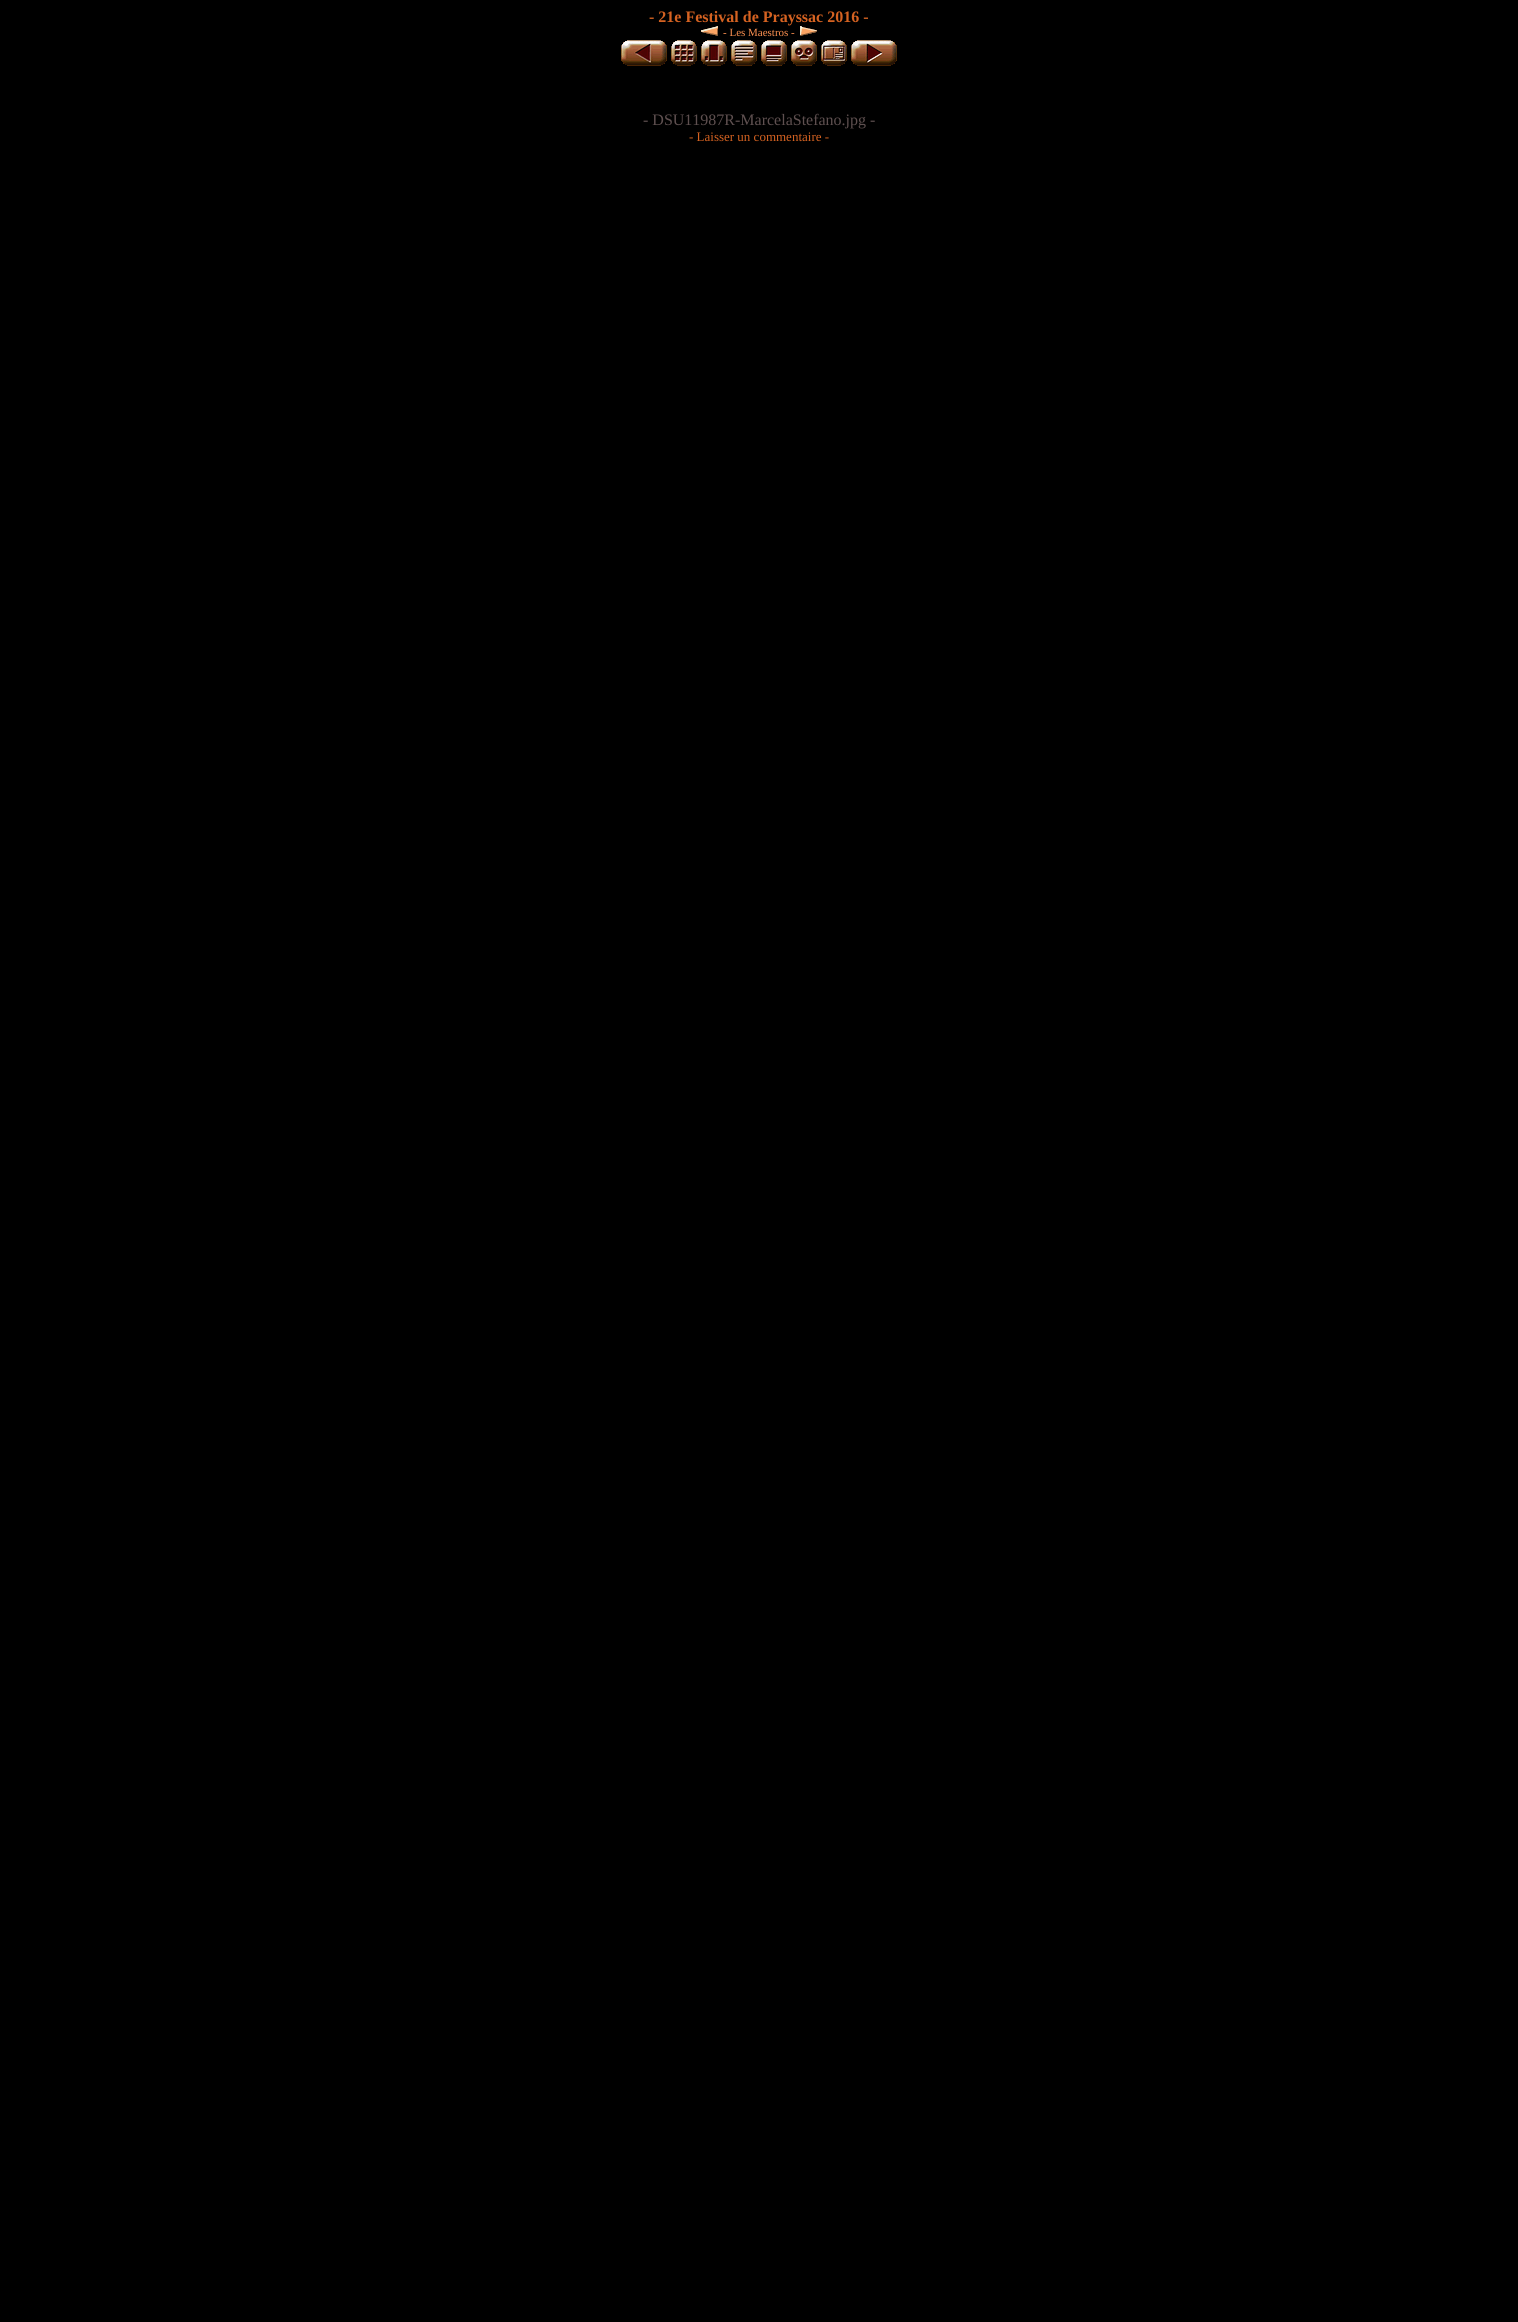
import math
import cairo



def draw_image(context, path, x, y, w, h):
    context.save()
    context.set_source_surface(cairo.ImageSurface.create_from_png(path), x, y)
    context.rectangle(x, y, w, h)
    context.fill()
    context.restore()


def draw(context):
    context.set_source_rgb(0, 0, 0)
    context.paint()
    draw_image(context, "images/1.png", 701, 26, 17, 10)
    draw_image(context, "images/2.png", 800, 26, 17, 10)
    draw_image(context, "images/3.png", 621, 40, 46, 26)
    draw_image(context, "images/4.png", 671, 40, 26, 26)
    draw_image(context, "images/5.png", 701, 40, 26, 26)
    draw_image(context, "images/6.png", 731, 40, 26, 26)
    draw_image(context, "images/7.png", 761, 40, 26, 26)
    draw_image(context, "images/8.png", 791, 40, 26, 26)
    draw_image(context, "images/9.png", 821, 40, 26, 26)
    draw_image(context, "images/10.png", 851, 40, 46, 26)
    context.select_font_face("Liberation Serif", cairo.FontSlant.NORMAL, cairo.FontWeight.BOLD)
    context.set_font_size(16)
    context.set_source_rgb(213 / 255, 98 / 255, 33 / 255)
    context.move_to(649, 22)
    context.show_text("- 21e Festival de Prayssac 2016 -")
    context.select_font_face("Liberation Serif")
    context.set_font_size(11)
    context.set_source_rgb(1, 146 / 255, 81 / 255)
    context.move_to(723, 36)
    context.show_text("- Les Maestros -")
    context.set_font_size(16)
    context.set_source_rgb(95 / 255, 80 / 255, 80 / 255)
    context.move_to(643, 125)
    context.show_text("- DSU11987R-MarcelaStefano.jpg -")
    context.set_font_size(13)
    context.set_source_rgb(213 / 255, 98 / 255, 33 / 255)
    context.move_to(689, 141)
    context.show_text("- Laisser un commentaire -")


surface = cairo.ImageSurface(cairo.Format.RGB24, 1518, 2322)
context = cairo.Context(surface)
options = cairo.FontOptions()
options.set_hint_metrics(cairo.HintMetrics.OFF)
options.set_hint_style(cairo.HintStyle.NONE)
context.set_font_options(options)
context.set_miter_limit(4)
draw(context)
surface.write_to_png("out.png")
